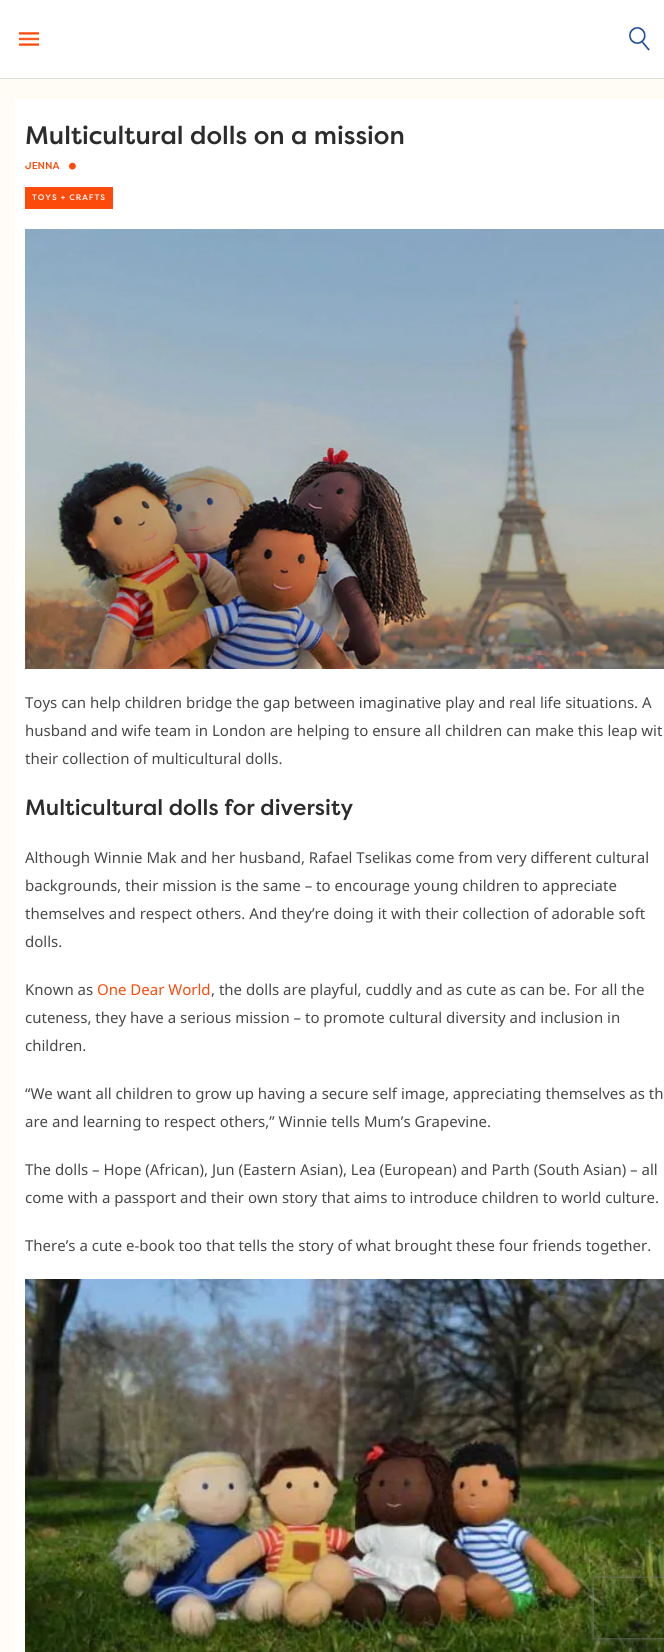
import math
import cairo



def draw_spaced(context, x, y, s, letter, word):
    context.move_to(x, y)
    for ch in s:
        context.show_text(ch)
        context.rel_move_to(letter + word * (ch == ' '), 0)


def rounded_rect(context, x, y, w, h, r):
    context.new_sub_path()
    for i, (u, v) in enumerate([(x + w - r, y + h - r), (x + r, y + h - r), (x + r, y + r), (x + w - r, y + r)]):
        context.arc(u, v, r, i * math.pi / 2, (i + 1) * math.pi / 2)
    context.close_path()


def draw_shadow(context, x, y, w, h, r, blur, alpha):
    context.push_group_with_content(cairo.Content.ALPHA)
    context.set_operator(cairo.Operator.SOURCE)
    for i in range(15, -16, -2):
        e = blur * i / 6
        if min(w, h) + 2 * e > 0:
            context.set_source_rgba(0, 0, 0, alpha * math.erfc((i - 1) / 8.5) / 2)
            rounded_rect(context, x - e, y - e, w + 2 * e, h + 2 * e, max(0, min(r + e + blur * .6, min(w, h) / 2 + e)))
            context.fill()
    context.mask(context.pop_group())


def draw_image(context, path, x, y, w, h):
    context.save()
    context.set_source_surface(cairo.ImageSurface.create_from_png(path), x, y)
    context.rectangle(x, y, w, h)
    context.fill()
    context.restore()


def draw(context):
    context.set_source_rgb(1, 252 / 255, 245 / 255)
    context.paint()
    context.set_source_rgb(1, 1, 1)
    context.rectangle(0, 0, 664, 78)
    context.fill()
    context.set_source_rgb(221 / 255, 221 / 255, 221 / 255)
    context.rectangle(0, 78, 664, 1)
    context.fill()
    draw_image(context, "images/1.png", 19, 32, 20, 14)
    draw_image(context, "images/2.png", 629, 27, 21, 24)
    context.set_source_rgb(1, 1, 1)
    context.rectangle(15, 99, 649, 1553)
    context.fill()
    draw_image(context, "images/3.png", 69, 162, 7, 8)
    context.set_source_rgb(252 / 255, 74 / 255, 10 / 255)
    context.rectangle(25, 187, 88, 22)
    context.fill()
    draw_image(context, "images/4.png", 25, 229, 639, 440)
    draw_image(context, "images/5.png", 25, 1279, 639, 373)
    context.save()
    context.set_fill_rule(cairo.FillRule.EVEN_ODD)
    context.new_path()
    context.move_to(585, 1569)
    context.line_to(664, 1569)
    context.line_to(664, 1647)
    context.line_to(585, 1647)
    context.close_path()
    context.move_to(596, 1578)
    context.line_to(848, 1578)
    context.curve_to(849, 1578, 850, 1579, 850, 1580)
    context.line_to(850, 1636)
    context.curve_to(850, 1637, 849, 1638, 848, 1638)
    context.line_to(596, 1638)
    context.curve_to(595, 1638, 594, 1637, 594, 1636)
    context.line_to(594, 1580)
    context.curve_to(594, 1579, 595, 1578, 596, 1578)
    context.close_path()
    context.clip()
    context.set_source_rgb(128 / 255, 128 / 255, 128 / 255)
    draw_shadow(context, 594, 1578, 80, 60, 2, 2.5, 1)
    context.restore()
    context.select_font_face("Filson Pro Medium")
    context.set_font_size(25.25)
    context.set_source_rgb(44 / 255, 44 / 255, 44 / 255)
    context.move_to(25, 144)
    context.show_text("Multicultural dolls on a mission")
    context.set_font_size(10)
    context.set_source_rgb(252 / 255, 74 / 255, 10 / 255)
    context.move_to(25, 169)
    context.show_text("JENNA")
    context.set_font_size(8)
    context.set_source_rgb(1, 1, 1)
    draw_spaced(context, 32, 200, "TOYS + CRAFTS", 1, 0)
    context.select_font_face("Noto Sans")
    context.set_font_size(15)
    context.set_source_rgb(72 / 255, 72 / 255, 72 / 255)
    context.move_to(25, 708)
    context.show_text("Toys can help children bridge the gap between imaginative play and real life situations. A")
    context.move_to(25, 736)
    context.show_text("husband and wife team in London are helping to ensure all children can make this leap wit")
    context.move_to(25, 764)
    context.show_text("their collection of multicultural dolls.")
    context.select_font_face("Filson Pro Medium")
    context.set_font_size(22)
    context.set_source_rgb(44 / 255, 44 / 255, 44 / 255)
    context.move_to(25, 815)
    context.show_text("Multicultural dolls for diversity")
    context.select_font_face("Noto Sans")
    context.set_font_size(15)
    context.set_source_rgb(72 / 255, 72 / 255, 72 / 255)
    context.move_to(25, 863)
    context.show_text("Although Winnie Mak and her husband, Rafael Tselikas come from very different cultural")
    context.move_to(25, 891)
    context.show_text("backgrounds, their mission is the same – to encourage young children to appreciate")
    context.move_to(25, 919)
    context.show_text("themselves and respect others. And they’re doing it with their collection of adorable soft")
    context.move_to(25, 947)
    context.show_text("dolls.")
    context.move_to(25, 995)
    context.show_text("Known as")
    context.set_source_rgb(252 / 255, 74 / 255, 10 / 255)
    context.move_to(97, 995)
    context.show_text("One Dear World")
    context.set_source_rgb(72 / 255, 72 / 255, 72 / 255)
    context.move_to(211, 995)
    context.show_text(", the dolls are playful, cuddly and as cute as can be. For all the")
    context.move_to(25, 1023)
    context.show_text("cuteness, they have a serious mission – to promote cultural diversity and inclusion in")
    context.move_to(25, 1051)
    context.show_text("children.")
    context.move_to(25, 1099)
    context.show_text("“We want all children to grow up having a secure self image, appreciating themselves as th")
    context.move_to(25, 1127)
    context.show_text("are and learning to respect others,” Winnie tells Mum’s Grapevine.")
    context.move_to(25, 1175)
    context.show_text("The dolls – Hope (African), Jun (Eastern Asian), Lea (European) and Parth (South Asian) – all")
    context.move_to(25, 1203)
    context.show_text("come with a passport and their own story that aims to introduce children to world culture.")
    context.move_to(25, 1251)
    context.show_text("There’s a cute e-book too that tells the story of what brought these four friends together.")


surface = cairo.ImageSurface(cairo.Format.RGB24, 664, 1652)
context = cairo.Context(surface)
options = cairo.FontOptions()
options.set_hint_metrics(cairo.HintMetrics.OFF)
options.set_hint_style(cairo.HintStyle.NONE)
context.set_font_options(options)
context.set_miter_limit(4)
draw(context)
surface.write_to_png("out.png")
